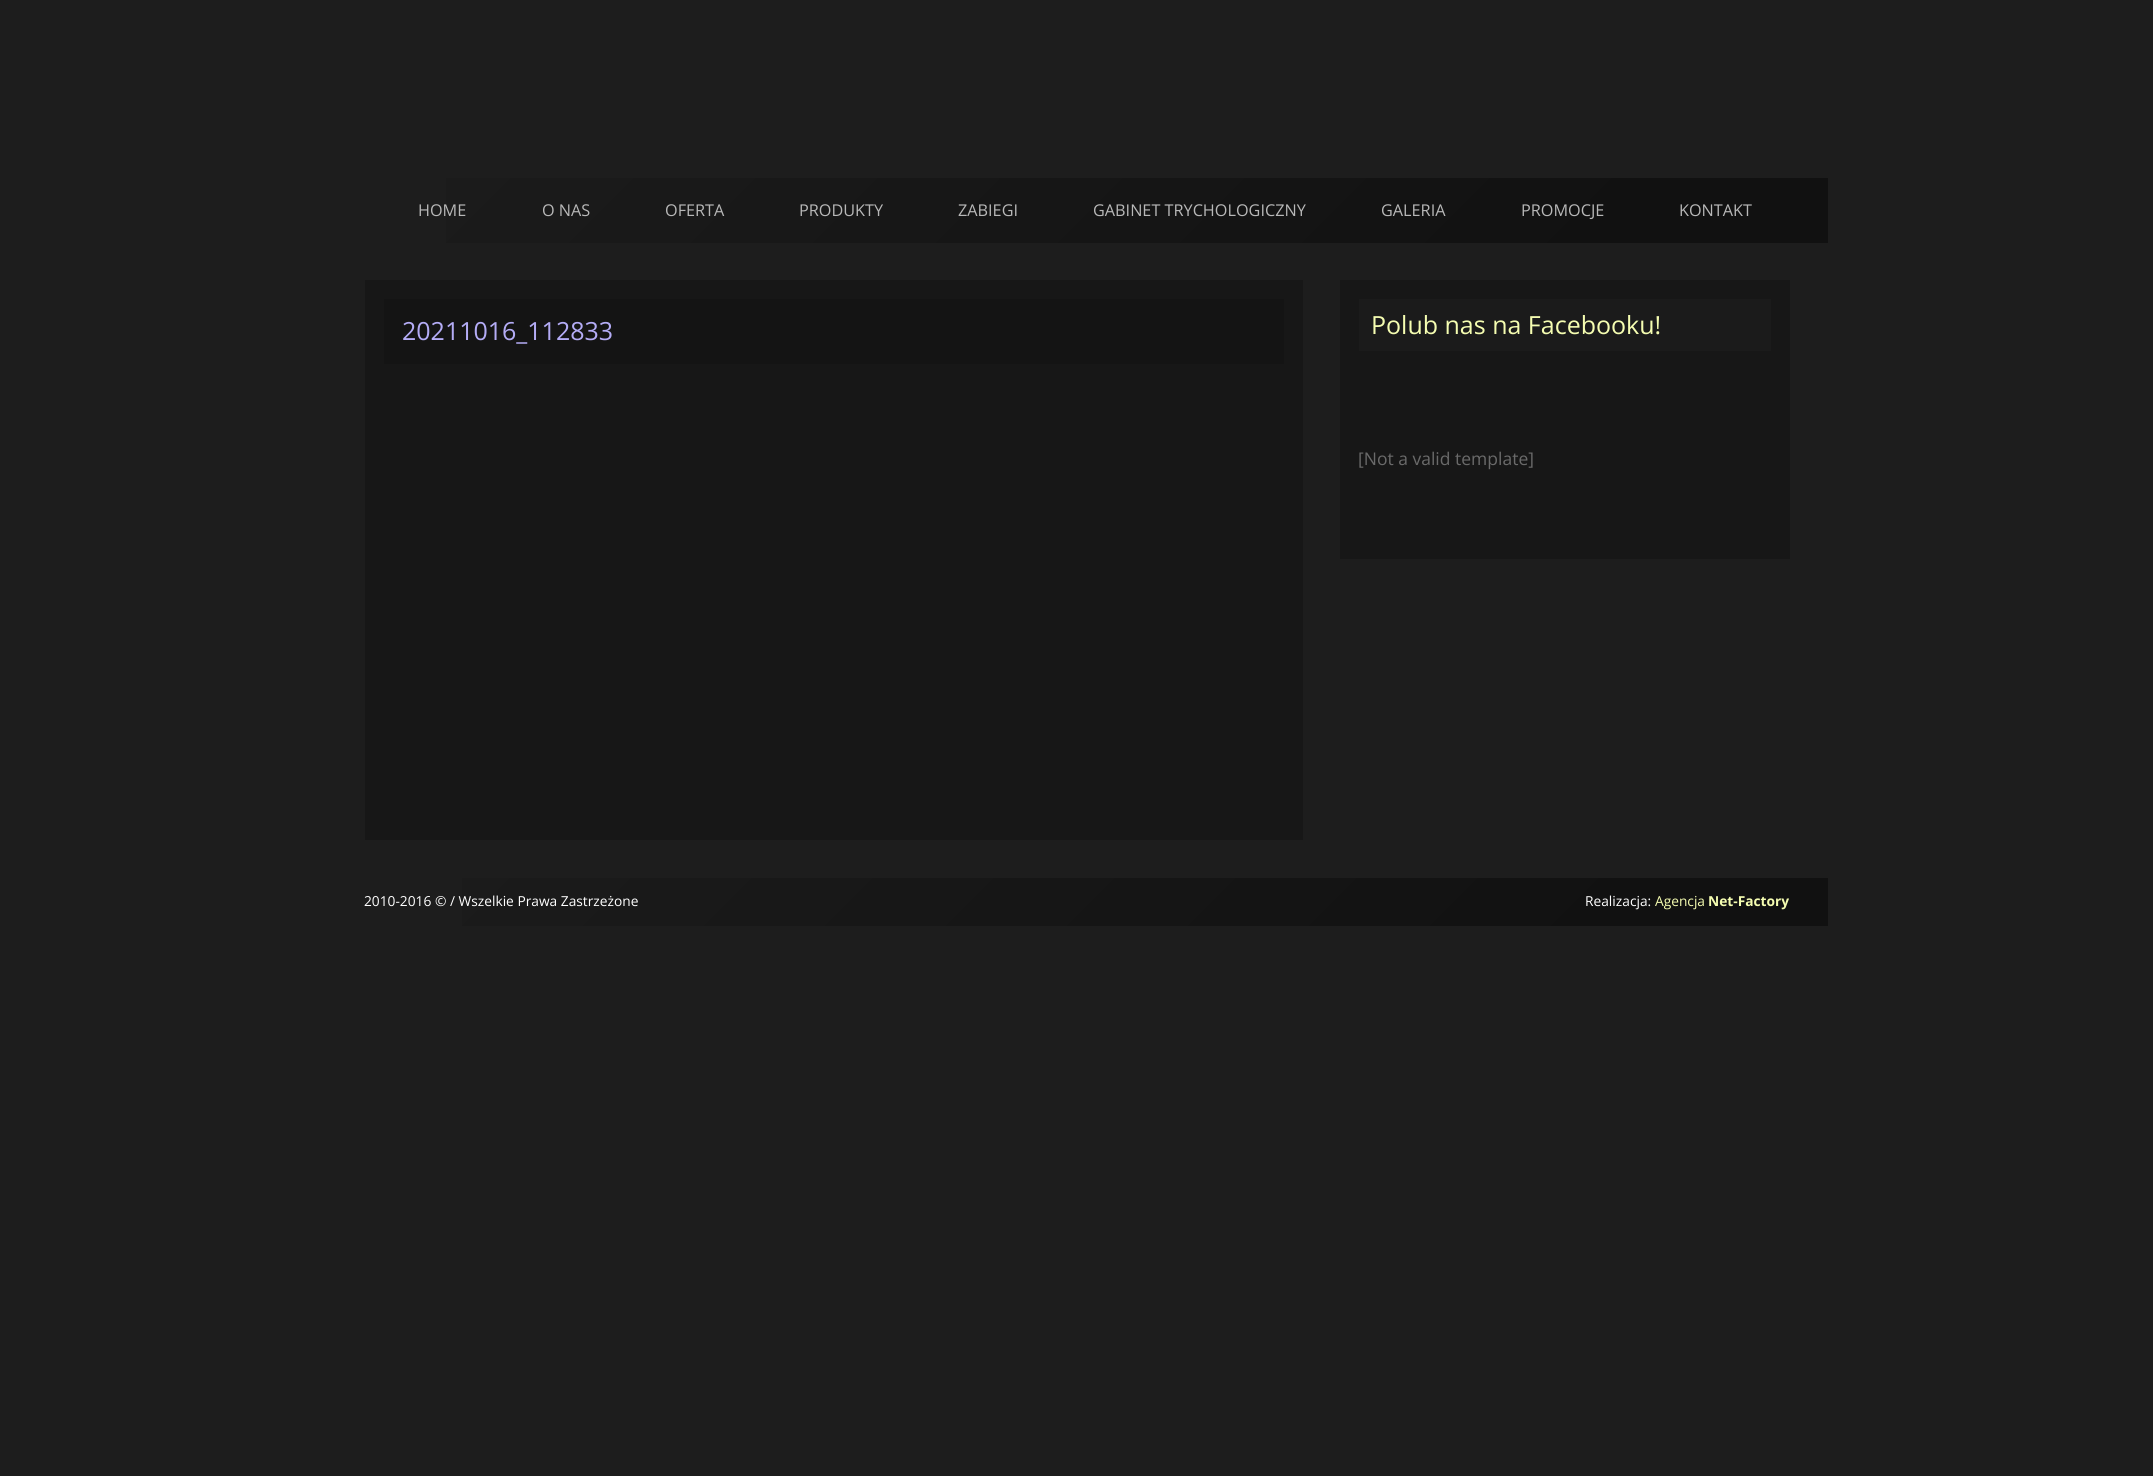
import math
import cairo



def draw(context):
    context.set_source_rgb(29 / 255, 29 / 255, 29 / 255)
    context.paint()
    gradient = cairo.LinearGradient(686, -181, 1469, 601)
    gradient.add_color_stop_rgba(0, 28 / 255, 28 / 255, 28 / 255, 1)
    gradient.add_color_stop_rgba(0.86, 17 / 255, 17 / 255, 17 / 255, 1)
    context.set_source(gradient)
    context.rectangle(446, 178, 1382, 65)
    context.fill()
    context.set_source_rgb(23 / 255, 23 / 255, 23 / 255)
    context.rectangle(365, 280, 938, 560)
    context.fill()
    context.set_source_rgb(20 / 255, 20 / 255, 20 / 255)
    context.rectangle(384, 299, 900, 65)
    context.fill()
    context.set_source_rgb(23 / 255, 23 / 255, 23 / 255)
    context.rectangle(1340, 280, 450, 279)
    context.fill()
    context.set_source_rgb(27 / 255, 27 / 255, 27 / 255)
    context.rectangle(1359, 299, 412, 52)
    context.fill()
    gradient = cairo.LinearGradient(690, 515, 1465, 1289)
    gradient.add_color_stop_rgba(0, 28 / 255, 28 / 255, 28 / 255, 1)
    gradient.add_color_stop_rgba(0.86, 17 / 255, 17 / 255, 17 / 255, 1)
    context.set_source(gradient)
    context.rectangle(462, 878, 1366, 48)
    context.fill()
    context.select_font_face("Open Sans")
    context.set_font_size(16.25)
    context.set_source_rgb(184 / 255, 184 / 255, 184 / 255)
    context.move_to(418, 216)
    context.show_text("HOME")
    context.move_to(542, 216)
    context.show_text("O NAS")
    context.move_to(665, 216)
    context.show_text("OFERTA")
    context.move_to(799, 216)
    context.show_text("PRODUKTY")
    context.move_to(958, 216)
    context.show_text("ZABIEGI")
    context.move_to(1093, 216)
    context.show_text("GABINET TRYCHOLOGICZNY")
    context.move_to(1381, 216)
    context.show_text("GALERIA")
    context.move_to(1521, 216)
    context.show_text("PROMOCJE")
    context.move_to(1679, 216)
    context.show_text("KONTAKT")
    context.set_font_size(25)
    context.set_source_rgb(180 / 255, 172 / 255, 246 / 255)
    context.move_to(402, 340)
    context.show_text("20211016_112833")
    context.set_source_rgb(245 / 255, 253 / 255, 177 / 255)
    context.move_to(1371, 334)
    context.show_text("Polub nas na Facebooku!")
    context.set_font_size(17.5)
    context.set_source_rgb(106 / 255, 106 / 255, 106 / 255)
    context.move_to(1358, 465)
    context.show_text("[Not a valid template]")
    context.set_font_size(13.75)
    context.set_source_rgb(1, 1, 1)
    context.move_to(364, 906)
    context.show_text("2010-2016 © / Wszelkie Prawa Zastrzeżone")
    context.move_to(1585, 906)
    context.show_text("Realizacja:")
    context.set_source_rgb(245 / 255, 253 / 255, 177 / 255)
    context.move_to(1655, 906)
    context.show_text("Agencja")
    context.select_font_face("Open Sans", cairo.FontSlant.NORMAL, cairo.FontWeight.BOLD)
    context.move_to(1708, 906)
    context.show_text("Net-Factory")


surface = cairo.ImageSurface(cairo.Format.RGB24, 2153, 1476)
context = cairo.Context(surface)
options = cairo.FontOptions()
options.set_hint_metrics(cairo.HintMetrics.OFF)
options.set_hint_style(cairo.HintStyle.NONE)
context.set_font_options(options)
context.set_miter_limit(4)
draw(context)
surface.write_to_png("out.png")
